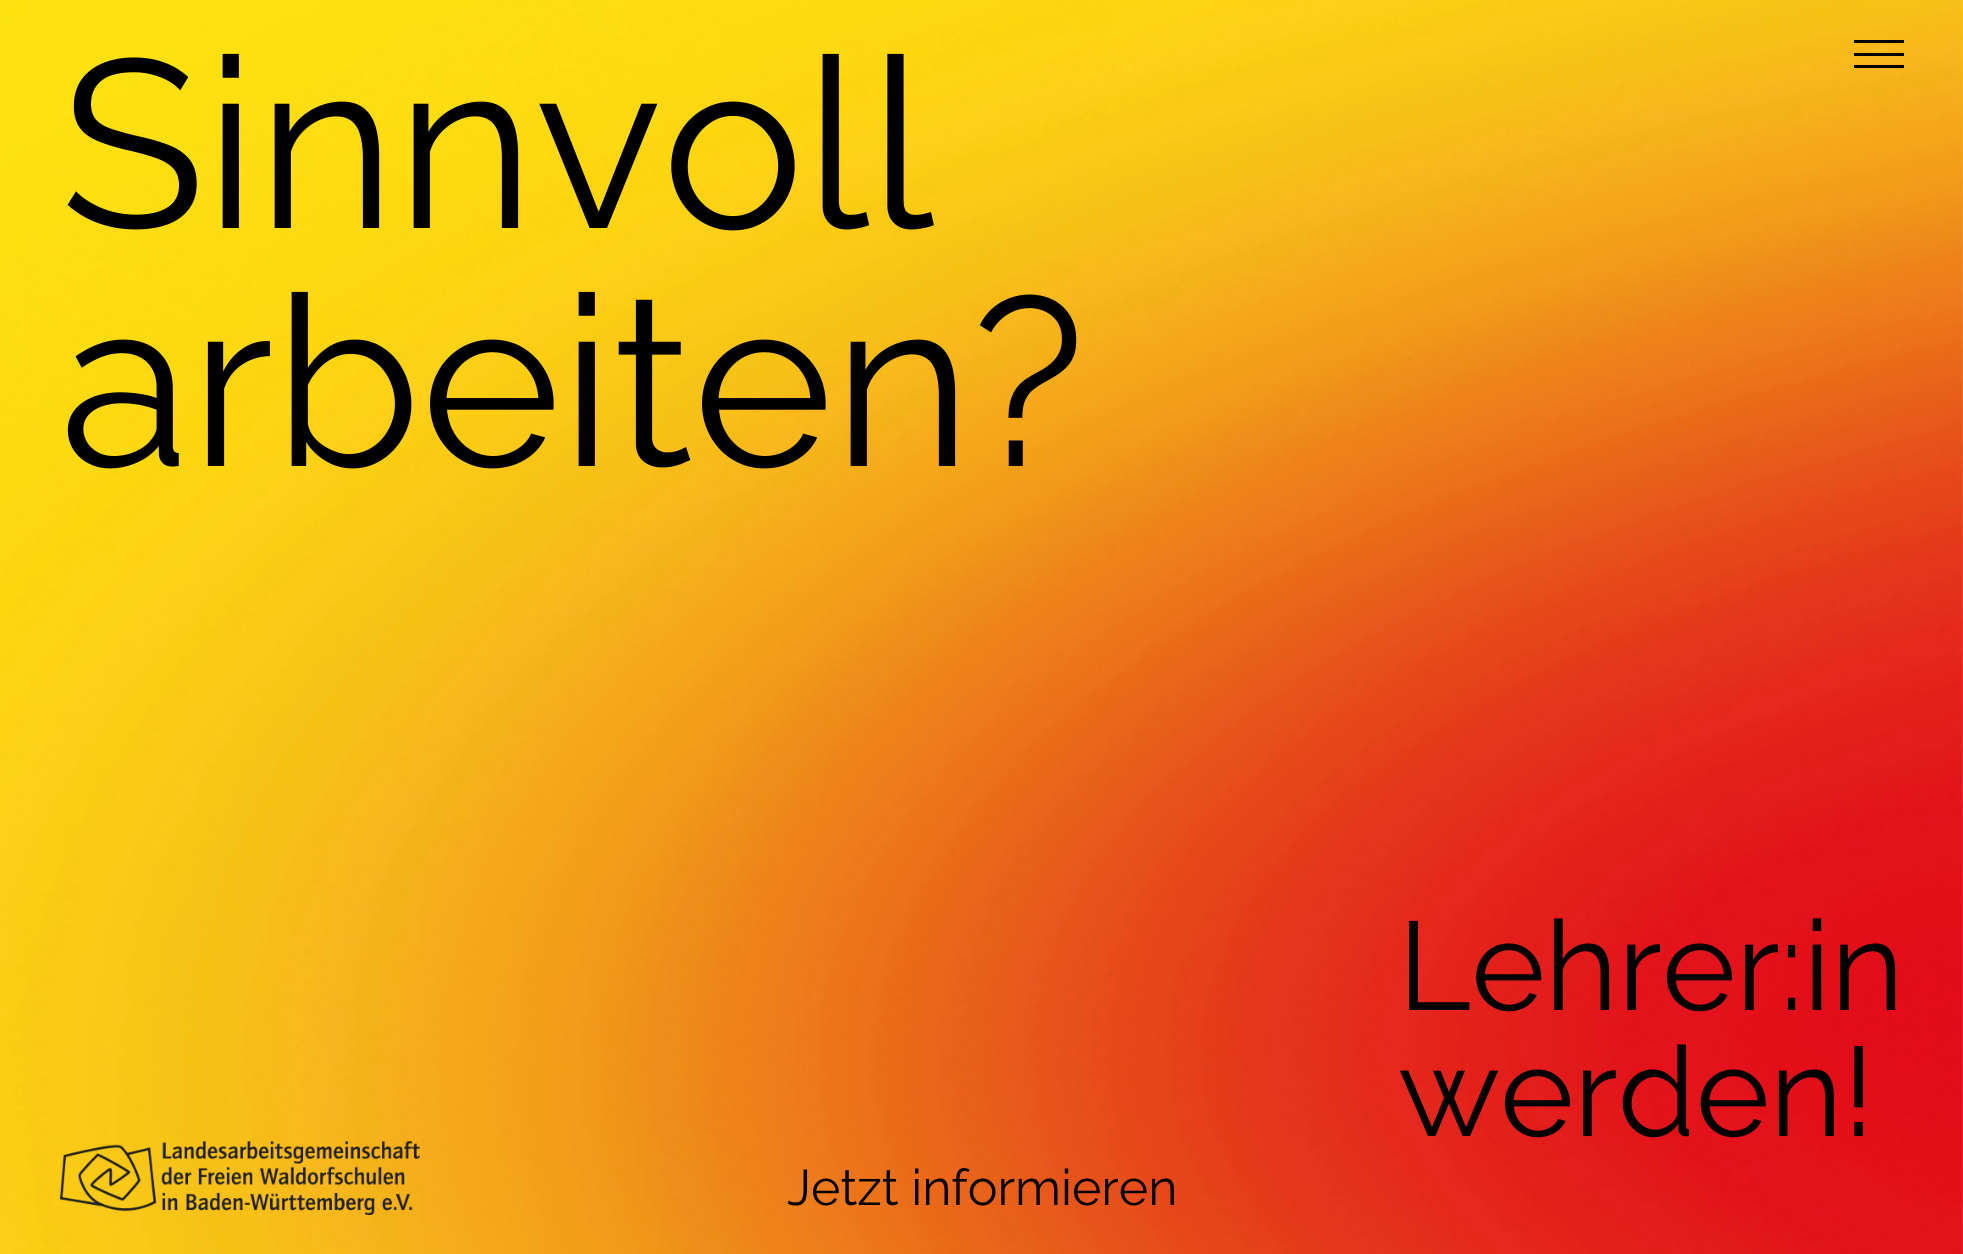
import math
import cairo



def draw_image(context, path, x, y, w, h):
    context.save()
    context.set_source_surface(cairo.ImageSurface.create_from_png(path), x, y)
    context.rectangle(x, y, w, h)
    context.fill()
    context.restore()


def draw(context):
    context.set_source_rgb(1, 1, 1)
    context.paint()
    draw_image(context, "images/1.png", 0, 0, 1963, 1254)
    context.set_source_rgb(0, 0, 0)
    context.rectangle(1854, 40, 50, 3)
    context.fill()
    context.rectangle(1854, 53, 50, 3)
    context.fill()
    context.rectangle(1854, 65, 50, 3)
    context.fill()
    draw_image(context, "images/2.png", 60, 1141, 360, 74)
    context.select_font_face("Raleway")
    context.set_font_size(238.5)
    context.move_to(60, 228)
    context.show_text("Sinnvoll")
    context.move_to(60, 466)
    context.show_text("arbeiten?")
    context.set_font_size(125.5)
    context.move_to(1398, 1010)
    context.show_text("Lehrer:in")
    context.move_to(1398, 1136)
    context.show_text("werden!")
    context.set_font_size(50)
    context.move_to(787, 1205)
    context.show_text("Jetzt informieren")


surface = cairo.ImageSurface(cairo.Format.RGB24, 1963, 1254)
context = cairo.Context(surface)
options = cairo.FontOptions()
options.set_hint_metrics(cairo.HintMetrics.OFF)
options.set_hint_style(cairo.HintStyle.NONE)
context.set_font_options(options)
context.set_miter_limit(4)
draw(context)
surface.write_to_png("out.png")
